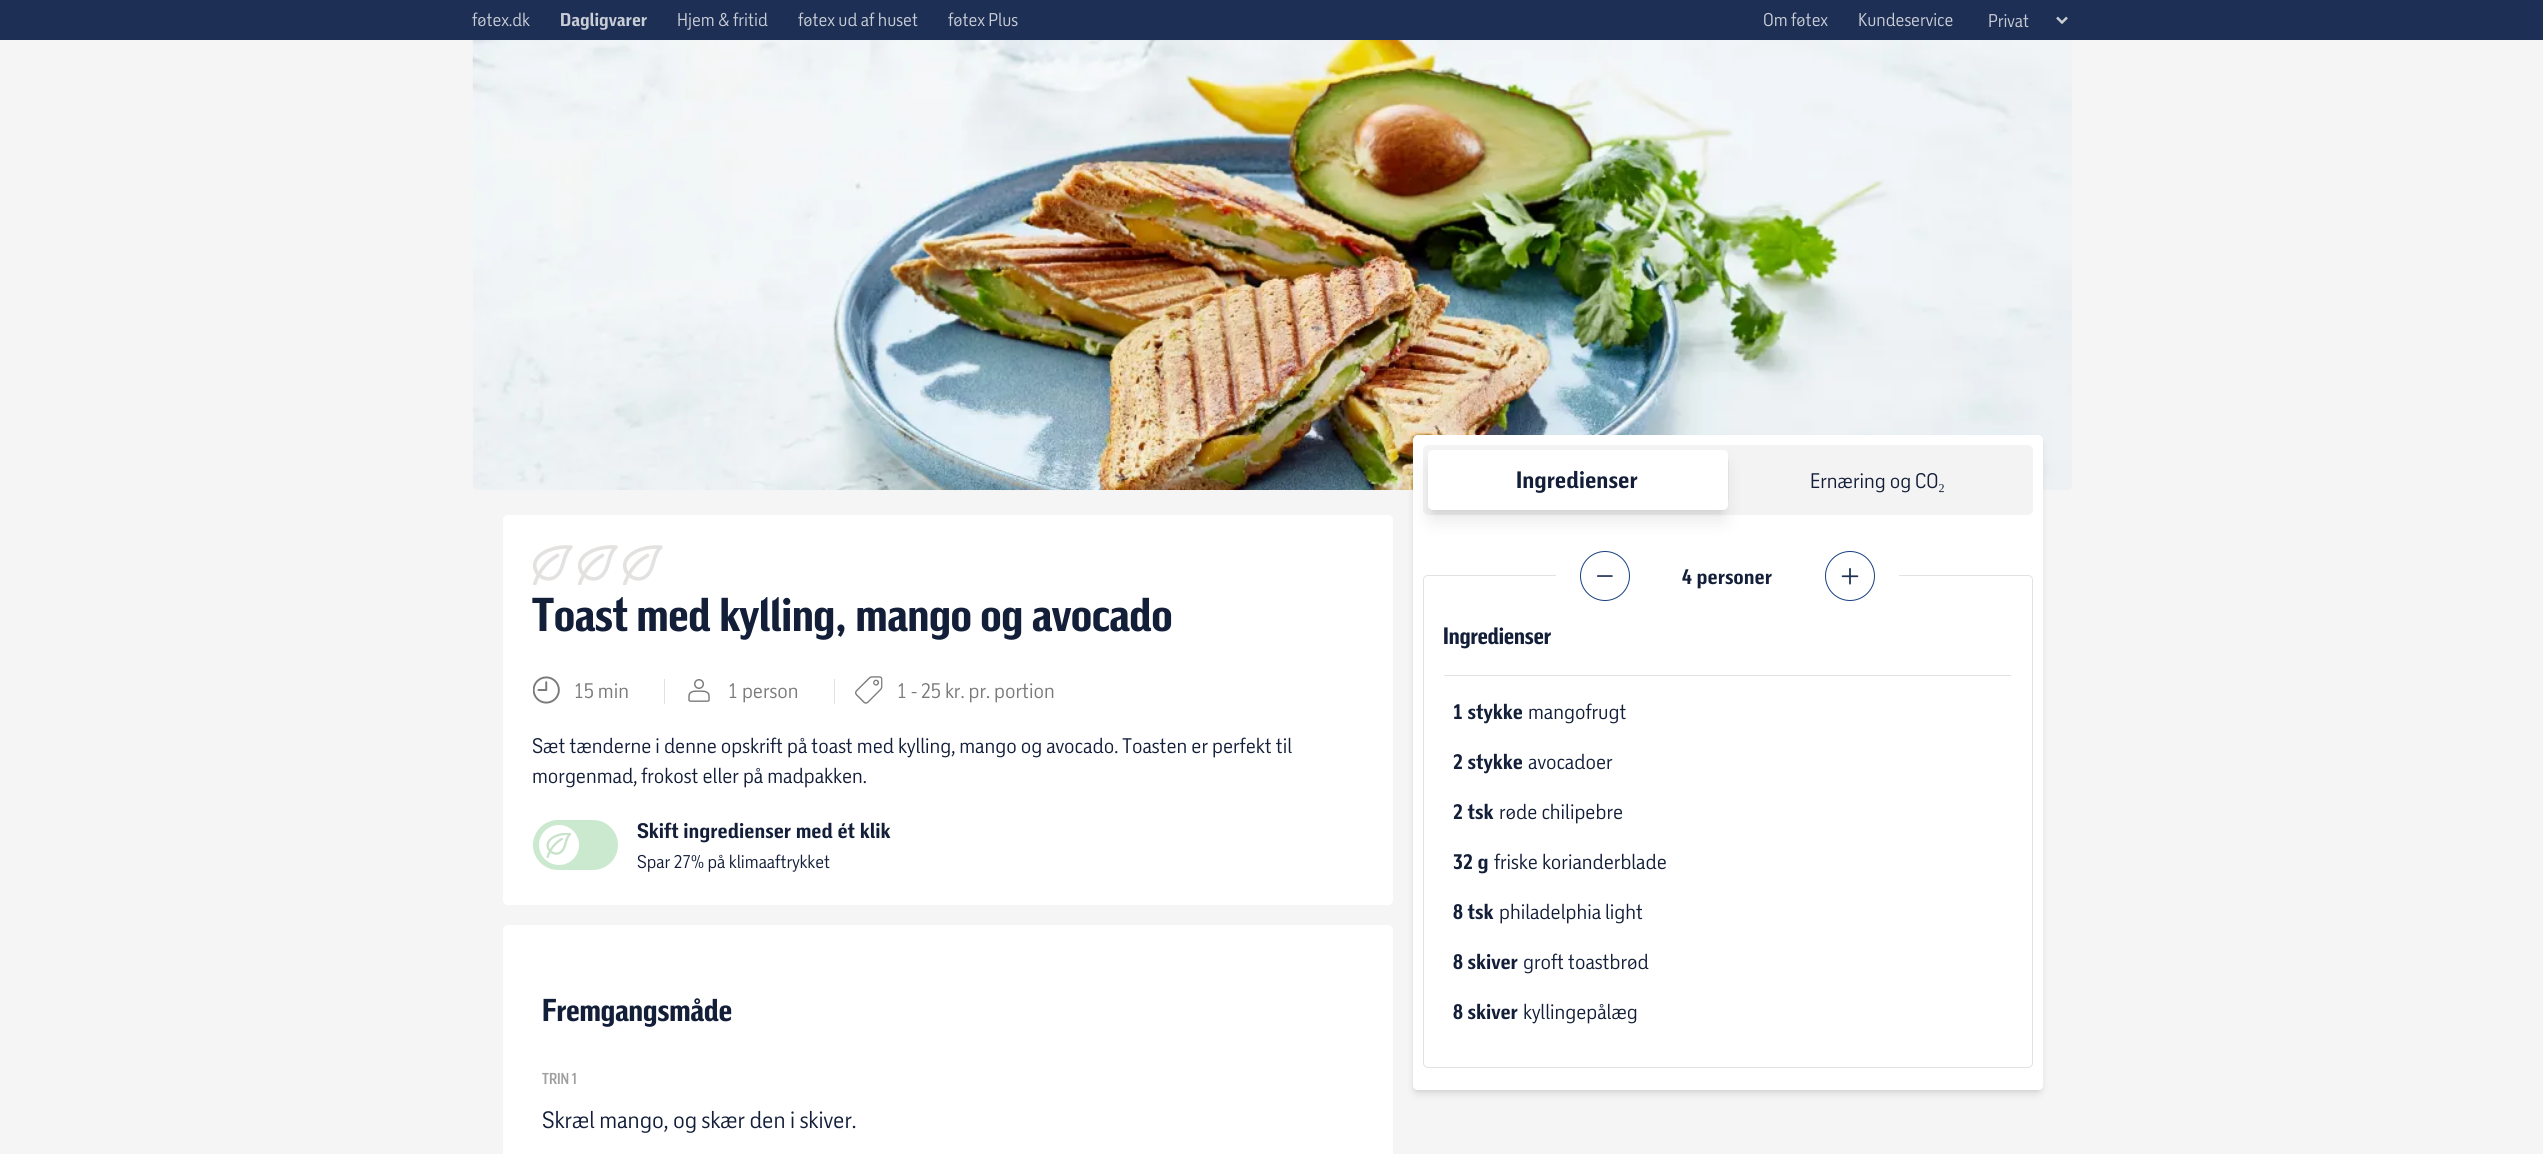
import math
import cairo



def rounded_rect(context, x, y, w, h, r):
    context.new_sub_path()
    for i, (u, v) in enumerate([(x + w - r, y + h - r), (x + r, y + h - r), (x + r, y + r), (x + w - r, y + r)]):
        context.arc(u, v, r, i * math.pi / 2, (i + 1) * math.pi / 2)
    context.close_path()


def draw_shadow(context, x, y, w, h, r, blur, alpha):
    context.push_group_with_content(cairo.Content.ALPHA)
    context.set_operator(cairo.Operator.SOURCE)
    for i in range(15, -16, -2):
        e = blur * i / 6
        if min(w, h) + 2 * e > 0:
            context.set_source_rgba(0, 0, 0, alpha * math.erfc((i - 1) / 8.5) / 2)
            rounded_rect(context, x - e, y - e, w + 2 * e, h + 2 * e, max(0, min(r + e + blur * .6, min(w, h) / 2 + e)))
            context.fill()
    context.mask(context.pop_group())


def draw_image(context, path, x, y, w, h):
    context.save()
    context.set_source_surface(cairo.ImageSurface.create_from_png(path), x, y)
    context.rectangle(x, y, w, h)
    context.fill()
    context.restore()


def draw(context):
    context.set_source_rgb(245 / 255, 245 / 255, 245 / 255)
    context.paint()
    context.set_source_rgb(29 / 255, 47 / 255, 84 / 255)
    context.rectangle(0, 0, 2543, 40)
    context.fill()
    context.new_path()
    context.move_to(2057, 17.5)
    context.line_to(2062, 22.5)
    context.line_to(2067, 17.5)
    context.set_source_rgb(201 / 255, 205 / 255, 214 / 255)
    context.set_line_width(2.5)
    context.stroke()
    draw_image(context, "images/1.png", 472, 40, 1600, 450)
    context.set_source_rgb(1, 1, 1)
    rounded_rect(context, 503, 515, 890, 390, 5)
    context.fill()
    draw_image(context, "images/2.png", 533, 545, 40, 40)
    draw_image(context, "images/2.png", 578, 545, 40, 40)
    draw_image(context, "images/2.png", 623, 545, 40, 40)
    draw_image(context, "images/3.png", 533, 676, 27, 28)
    context.set_source_rgb(228 / 255, 226 / 255, 224 / 255)
    context.rectangle(664, 679, 1, 25)
    context.fill()
    draw_image(context, "images/4.png", 688, 679, 22, 23)
    context.rectangle(834, 679, 1, 25)
    context.fill()
    draw_image(context, "images/5.png", 855, 676, 28, 28)
    context.set_source_rgb(203 / 255, 233 / 255, 206 / 255)
    rounded_rect(context, 533, 820, 85, 50, 25)
    context.fill()
    context.set_source_rgb(1, 1, 1)
    context.arc(559, 845, 20, 0, 2 * math.pi)
    context.fill()
    draw_image(context, "images/6.png", 546, 833, 25, 25)
    context.set_source_rgb(0, 0, 0)
    draw_shadow(context, 1415, 440, 625, 650, 2.5, 2.5, 0.1)
    draw_shadow(context, 1414, 441, 627, 653, 4, 4, 0.1)
    context.set_source_rgb(1, 1, 1)
    rounded_rect(context, 1413, 435, 630, 655, 5)
    context.fill()
    context.set_source_rgb(244 / 255, 243 / 255, 243 / 255)
    rounded_rect(context, 1423, 445, 610, 70, 5)
    context.fill()
    context.set_source_rgb(0, 0, 0)
    draw_shadow(context, 1433, 460, 290, 50, 0, 4, 0.1)
    context.set_source_rgb(1, 1, 1)
    rounded_rect(context, 1413, 525, 630, 565, 5)
    context.fill()
    context.set_source_rgb(0, 0, 0)
    draw_shadow(context, 1431, 466, 293, 53, 1, 9.5, 0.1)
    context.set_source_rgb(1, 1, 1)
    rounded_rect(context, 1428, 450, 300, 60, 5)
    context.fill()
    context.set_source_rgb(228 / 255, 226 / 255, 224 / 255)
    context.rectangle(1728, 460, 1, 40)
    context.fill()
    rounded_rect(context, 1423.5, 575.5, 609, 492, 4.5)
    context.set_line_width(1)
    context.stroke()
    context.set_source_rgb(1, 1, 1)
    context.rectangle(1556, 575, 343, 1)
    context.fill()
    rounded_rect(context, 1424, 576, 597, 25, 5)
    context.fill()
    context.arc(1605, 576, 24.5, 0, 2 * math.pi)
    context.set_source_rgb(24 / 255, 64 / 255, 130 / 255)
    context.stroke()
    draw_image(context, "images/7.png", 1596, 575, 17, 2)
    context.arc(1850, 576, 24.5, 0, 2 * math.pi)
    context.stroke()
    draw_image(context, "images/8.png", 1841, 568, 18, 17)
    context.set_source_rgb(228 / 255, 226 / 255, 224 / 255)
    context.rectangle(1444, 675, 567, 1)
    context.fill()
    context.set_source_rgb(1, 1, 1)
    rounded_rect(context, 503, 925, 890, 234, 5)
    context.fill()
    context.select_font_face("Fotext")
    context.set_font_size(17.5)
    context.set_source_rgb(201 / 255, 205 / 255, 214 / 255)
    context.move_to(472, 26)
    context.show_text("føtex.dk")
    context.select_font_face("Fotext", cairo.FontSlant.NORMAL, cairo.FontWeight.BOLD)
    context.move_to(560, 26)
    context.show_text("Dagligvarer")
    context.select_font_face("Fotext")
    context.move_to(677, 26)
    context.show_text("Hjem & fritid")
    context.move_to(798, 26)
    context.show_text("føtex ud af huset")
    context.move_to(948, 26)
    context.show_text("føtex Plus")
    context.move_to(1763, 26)
    context.show_text("Om føtex")
    context.move_to(1858, 26)
    context.show_text("Kundeservice")
    context.move_to(1988, 27)
    context.show_text("Privat")
    context.select_font_face("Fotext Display", cairo.FontSlant.NORMAL, cairo.FontWeight.BOLD)
    context.set_font_size(45)
    context.set_source_rgb(19 / 255, 30 / 255, 57 / 255)
    context.move_to(532, 631)
    context.show_text("Toast med kylling, mango og avocado")
    context.select_font_face("Fotext")
    context.set_font_size(20)
    context.set_source_rgb(122 / 255, 122 / 255, 122 / 255)
    context.move_to(574, 698)
    context.show_text("15 min")
    context.move_to(728, 698)
    context.show_text("1 person")
    context.move_to(897, 698)
    context.show_text("1 - 25 kr. pr. portion")
    context.set_source_rgb(19 / 255, 30 / 255, 57 / 255)
    context.move_to(532, 753)
    context.show_text("Sæt tænderne i denne opskrift på toast med kylling, mango og avocado. Toasten er perfekt til")
    context.move_to(532, 783)
    context.show_text("morgenmad, frokost eller på madpakken.")
    context.select_font_face("Fotext", cairo.FontSlant.NORMAL, cairo.FontWeight.BOLD)
    context.move_to(637, 838)
    context.show_text("Skift ingredienser med ét klik")
    context.select_font_face("Fotext")
    context.set_font_size(17.5)
    context.move_to(637, 868)
    context.show_text("Spar 27% på klimaaftrykket")
    context.select_font_face("Fotext", cairo.FontSlant.NORMAL, cairo.FontWeight.BOLD)
    context.set_font_size(22.5)
    context.move_to(1516, 488)
    context.show_text("Ingredienser")
    context.select_font_face("Fotext")
    context.set_font_size(20)
    context.move_to(1810, 488)
    context.show_text("Ernæring og CO")
    context.select_font_face("Liberation Serif")
    context.move_to(1938, 488)
    context.show_text("₂")
    context.select_font_face("Fotext", cairo.FontSlant.NORMAL, cairo.FontWeight.BOLD)
    context.move_to(1682, 584)
    context.show_text("4 personer")
    context.select_font_face("Fotext Display", cairo.FontSlant.NORMAL, cairo.FontWeight.BOLD)
    context.set_font_size(22.5)
    context.move_to(1443, 644)
    context.show_text("Ingredienser")
    context.select_font_face("Fotext", cairo.FontSlant.NORMAL, cairo.FontWeight.BOLD)
    context.set_font_size(20)
    context.move_to(1453, 719)
    context.show_text("1 stykke")
    context.select_font_face("Fotext")
    context.move_to(1528, 719)
    context.show_text("mangofrugt")
    context.select_font_face("Fotext", cairo.FontSlant.NORMAL, cairo.FontWeight.BOLD)
    context.move_to(1453, 769)
    context.show_text("2 stykke")
    context.select_font_face("Fotext")
    context.move_to(1528, 769)
    context.show_text("avocadoer")
    context.select_font_face("Fotext", cairo.FontSlant.NORMAL, cairo.FontWeight.BOLD)
    context.move_to(1453, 819)
    context.show_text("2 tsk")
    context.select_font_face("Fotext")
    context.move_to(1499, 819)
    context.show_text("røde chilipebre")
    context.select_font_face("Fotext", cairo.FontSlant.NORMAL, cairo.FontWeight.BOLD)
    context.move_to(1453, 869)
    context.show_text("32 g")
    context.select_font_face("Fotext")
    context.move_to(1494, 869)
    context.show_text("friske korianderblade")
    context.select_font_face("Fotext", cairo.FontSlant.NORMAL, cairo.FontWeight.BOLD)
    context.move_to(1453, 919)
    context.show_text("8 tsk")
    context.select_font_face("Fotext")
    context.move_to(1499, 919)
    context.show_text("philadelphia light")
    context.select_font_face("Fotext", cairo.FontSlant.NORMAL, cairo.FontWeight.BOLD)
    context.move_to(1453, 969)
    context.show_text("8 skiver")
    context.select_font_face("Fotext")
    context.move_to(1523, 969)
    context.show_text("groft toastbrød")
    context.select_font_face("Fotext", cairo.FontSlant.NORMAL, cairo.FontWeight.BOLD)
    context.move_to(1453, 1019)
    context.show_text("8 skiver")
    context.select_font_face("Fotext")
    context.move_to(1523, 1019)
    context.show_text("kyllingepålæg")
    context.select_font_face("Fotext Display", cairo.FontSlant.NORMAL, cairo.FontWeight.BOLD)
    context.set_font_size(30)
    context.move_to(542, 1021)
    context.show_text("Fremgangsmåde")
    context.select_font_face("Fotext Display SemiBold")
    context.set_font_size(15)
    context.set_source_rgb(159 / 255, 159 / 255, 159 / 255)
    context.move_to(542, 1084)
    context.show_text("TRIN 1")
    context.select_font_face("Fotext")
    context.set_font_size(22.5)
    context.set_source_rgb(19 / 255, 30 / 255, 57 / 255)
    context.move_to(542, 1128)
    context.show_text("Skræl mango, og skær den i skiver.")


surface = cairo.ImageSurface(cairo.Format.RGB24, 2543, 1154)
context = cairo.Context(surface)
options = cairo.FontOptions()
options.set_hint_metrics(cairo.HintMetrics.OFF)
options.set_hint_style(cairo.HintStyle.NONE)
context.set_font_options(options)
context.set_miter_limit(4)
draw(context)
surface.write_to_png("out.png")
